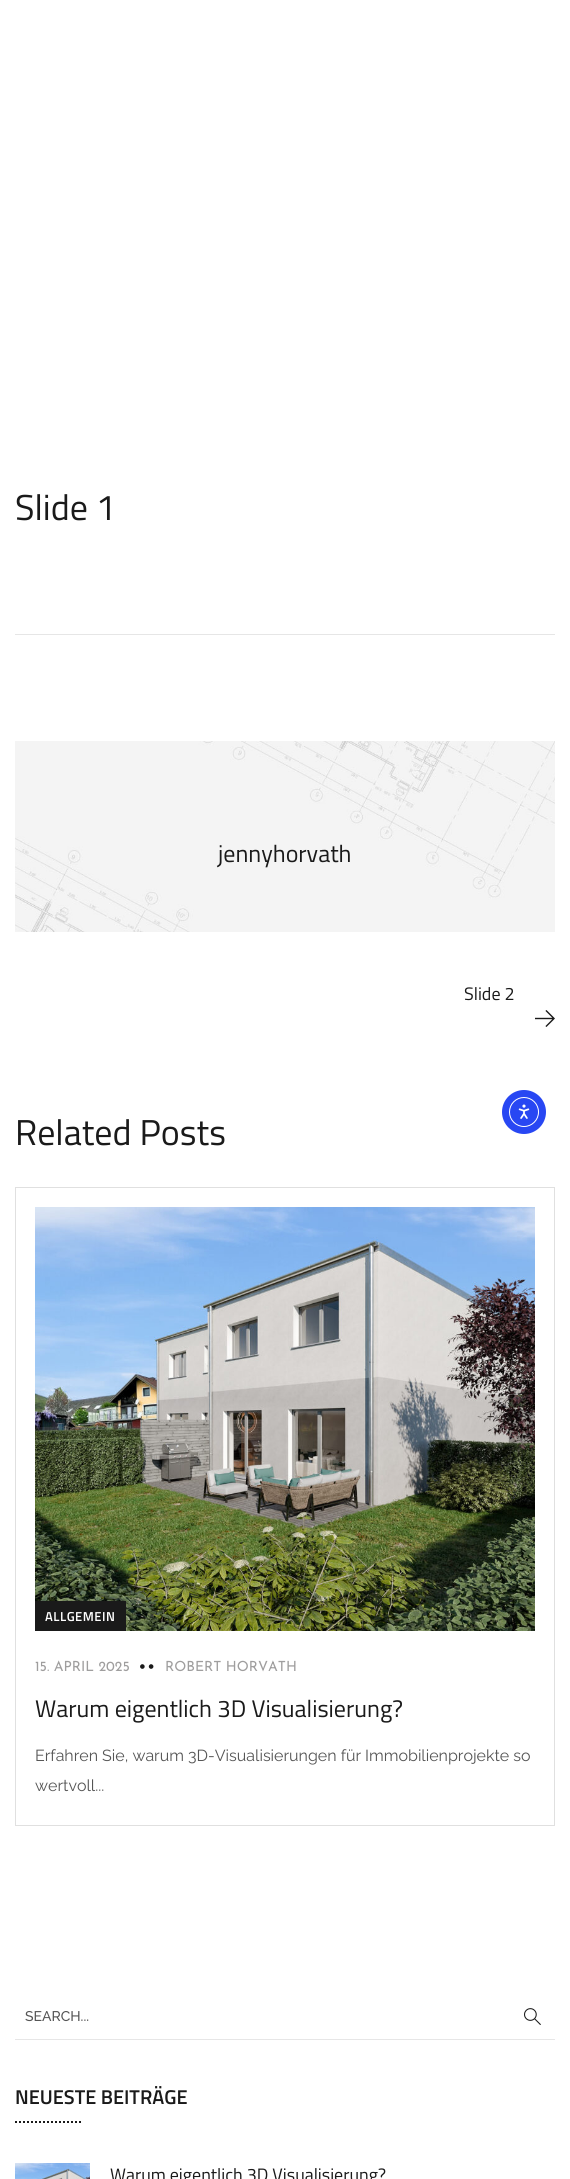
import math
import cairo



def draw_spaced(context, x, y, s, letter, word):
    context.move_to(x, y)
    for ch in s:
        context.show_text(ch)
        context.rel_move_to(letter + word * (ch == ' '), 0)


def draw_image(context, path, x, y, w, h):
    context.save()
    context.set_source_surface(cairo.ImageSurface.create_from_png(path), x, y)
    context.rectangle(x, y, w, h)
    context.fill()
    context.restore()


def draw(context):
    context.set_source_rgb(1, 1, 1)
    context.paint()
    context.set_source_rgb(230 / 255, 230 / 255, 230 / 255)
    context.rectangle(15, 634, 540, 1)
    context.fill()
    draw_image(context, "images/1.png", 15, 741, 540, 191)
    draw_image(context, "images/2.png", 535, 1010, 20, 17)
    context.rectangle(15.5, 1187.5, 539, 638)
    context.set_source_rgb(224 / 255, 224 / 255, 224 / 255)
    context.set_line_width(1)
    context.stroke()
    draw_image(context, "images/3.png", 35, 1207, 500, 424)
    context.set_source_rgb(26 / 255, 26 / 255, 26 / 255)
    context.rectangle(35, 1601, 91, 30)
    context.fill()
    context.set_source_rgb(230 / 255, 230 / 255, 230 / 255)
    context.rectangle(15, 2039, 540, 1)
    context.fill()
    draw_image(context, "images/4.png", 524, 2008, 17, 17)
    context.new_path()
    context.move_to(15, 2122)
    context.line_to(81, 2122)
    context.set_source_rgb(26 / 255, 26 / 255, 26 / 255)
    context.set_line_width(2)
    context.set_dash([2, 2])
    context.stroke()
    draw_image(context, "images/5.png", 15, 2163, 75, 16)
    context.set_source_rgb(40 / 255, 71 / 255, 243 / 255)
    context.arc(524, 1112, 22, 0, 2 * math.pi)
    context.fill()
    context.arc(524, 1112, 14.5, 0, 2 * math.pi)
    context.set_source_rgb(1, 1, 1)
    context.set_line_width(1)
    context.set_dash([])
    context.stroke()
    draw_image(context, "images/6.png", 518, 1104, 12, 15)
    context.select_font_face("Titillium Web")
    context.set_font_size(36)
    context.set_source_rgb(26 / 255, 26 / 255, 26 / 255)
    context.move_to(15, 520)
    context.show_text("Slide 1")
    context.set_font_size(24)
    context.move_to(218, 862)
    context.show_text("jennyhorvath")
    context.set_font_size(18)
    context.move_to(464, 1000)
    context.show_text("Slide 2")
    context.set_font_size(36)
    context.move_to(15, 1145)
    context.show_text("Related Posts")
    context.select_font_face("Titillium Web SemiBold")
    context.set_font_size(13)
    context.set_source_rgb(1, 1, 1)
    draw_spaced(context, 45, 1621, "ALLGEMEIN", 0.5, 0)
    context.select_font_face("Josefin Sans Thin")
    context.set_font_size(14)
    context.set_source_rgb(159 / 255, 158 / 255, 158 / 255)
    context.move_to(35, 1671)
    context.show_text("15. APRIL 2025")
    context.set_font_size(18)
    context.set_source_rgb(26 / 255, 26 / 255, 26 / 255)
    context.move_to(138, 1672)
    context.show_text("••")
    context.set_font_size(14)
    context.set_source_rgb(159 / 255, 158 / 255, 158 / 255)
    context.move_to(165, 1671)
    context.show_text("ROBERT HORVATH")
    context.select_font_face("Titillium Web")
    context.set_font_size(24)
    context.set_source_rgb(26 / 255, 26 / 255, 26 / 255)
    context.move_to(35, 1717)
    context.show_text("Warum eigentlich 3D Visualisierung?")
    context.select_font_face("Raleway")
    context.set_font_size(16)
    context.set_source_rgb(85 / 255, 85 / 255, 85 / 255)
    context.move_to(35, 1761)
    context.show_text("Erfahren Sie, warum 3D-Visualisierungen für Immobilienprojekte so")
    context.move_to(35, 1791)
    context.show_text("wertvoll...")
    context.select_font_face("Raleway Medium")
    context.set_font_size(14)
    context.move_to(25, 2021)
    context.show_text("SEARCH...")
    context.select_font_face("Titillium Web SemiBold")
    context.set_font_size(20)
    context.set_source_rgb(26 / 255, 26 / 255, 26 / 255)
    context.move_to(15, 2104)
    context.show_text("NEUESTE BEITRÄGE")
    context.select_font_face("Titillium Web")
    context.set_font_size(18)
    context.move_to(110, 2181)
    context.show_text("Warum eigentlich 3D Visualisierung?")


surface = cairo.ImageSurface(cairo.Format.RGB24, 570, 2179)
context = cairo.Context(surface)
options = cairo.FontOptions()
options.set_hint_metrics(cairo.HintMetrics.OFF)
options.set_hint_style(cairo.HintStyle.NONE)
context.set_font_options(options)
context.set_miter_limit(4)
draw(context)
surface.write_to_png("out.png")
